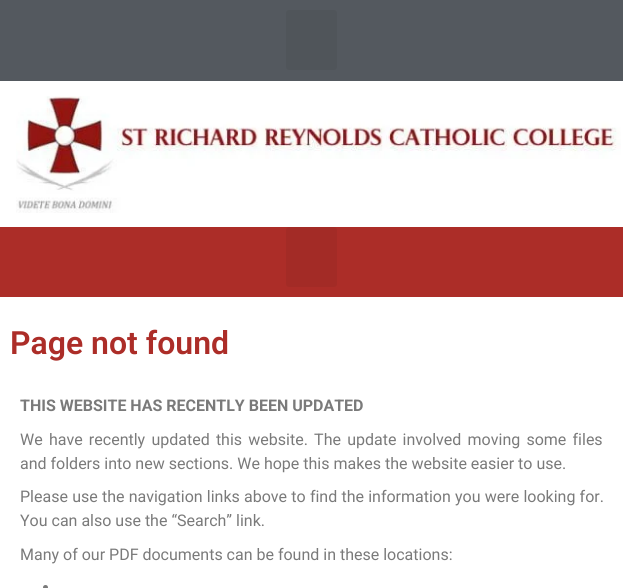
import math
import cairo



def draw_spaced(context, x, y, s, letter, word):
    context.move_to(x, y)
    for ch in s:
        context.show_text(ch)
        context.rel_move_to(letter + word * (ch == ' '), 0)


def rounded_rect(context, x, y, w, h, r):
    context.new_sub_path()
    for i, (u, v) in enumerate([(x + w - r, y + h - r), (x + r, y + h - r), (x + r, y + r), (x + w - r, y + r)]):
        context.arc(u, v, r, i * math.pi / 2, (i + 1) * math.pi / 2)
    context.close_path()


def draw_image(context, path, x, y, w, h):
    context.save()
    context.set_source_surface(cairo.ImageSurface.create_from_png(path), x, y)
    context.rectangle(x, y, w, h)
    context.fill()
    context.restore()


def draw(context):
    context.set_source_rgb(1, 1, 1)
    context.paint()
    context.set_source_rgb(84 / 255, 89 / 255, 95 / 255)
    context.rectangle(0, 0, 623, 81)
    context.fill()
    context.set_source_rgb(80 / 255, 85 / 255, 90 / 255)
    rounded_rect(context, 286, 10, 51, 60, 3)
    context.fill()
    draw_image(context, "images/1.png", 16, 96, 605, 117)
    context.set_source_rgb(172 / 255, 45 / 255, 40 / 255)
    context.rectangle(0, 227, 623, 70)
    context.fill()
    context.set_source_rgb(163 / 255, 43 / 255, 38 / 255)
    rounded_rect(context, 286, 227, 51, 60, 3)
    context.fill()
    context.set_source_rgb(122 / 255, 122 / 255, 122 / 255)
    context.arc(45.5, 587.5, 2.5, 0, 2 * math.pi)
    context.fill()
    context.select_font_face("Roboto SemiBold")
    context.set_font_size(32)
    context.set_source_rgb(172 / 255, 45 / 255, 40 / 255)
    context.move_to(10, 354)
    context.show_text("Page not found")
    context.select_font_face("Roboto", cairo.FontSlant.NORMAL, cairo.FontWeight.BOLD)
    context.set_font_size(16)
    context.set_source_rgb(122 / 255, 122 / 255, 122 / 255)
    context.move_to(20, 411)
    context.show_text("THIS WEBSITE HAS RECENTLY BEEN UPDATED")
    context.select_font_face("Roboto")
    draw_spaced(context, 20, 445, "We have recently updated this website. The update involved moving some files", 0, 2.25)
    context.move_to(20, 469)
    context.show_text("and folders into new sections. We hope this makes the website easier to use.")
    draw_spaced(context, 20, 502, "Please use the navigation links above to find the information you were looking for.", 0, 0.25)
    context.move_to(20, 526)
    context.show_text("You can also use the “Search” link.")
    context.move_to(20, 560)
    context.show_text("Many of our PDF documents can be found in these locations:")


surface = cairo.ImageSurface(cairo.Format.RGB24, 623, 588)
context = cairo.Context(surface)
options = cairo.FontOptions()
options.set_hint_metrics(cairo.HintMetrics.OFF)
options.set_hint_style(cairo.HintStyle.NONE)
context.set_font_options(options)
context.set_miter_limit(4)
draw(context)
surface.write_to_png("out.png")
